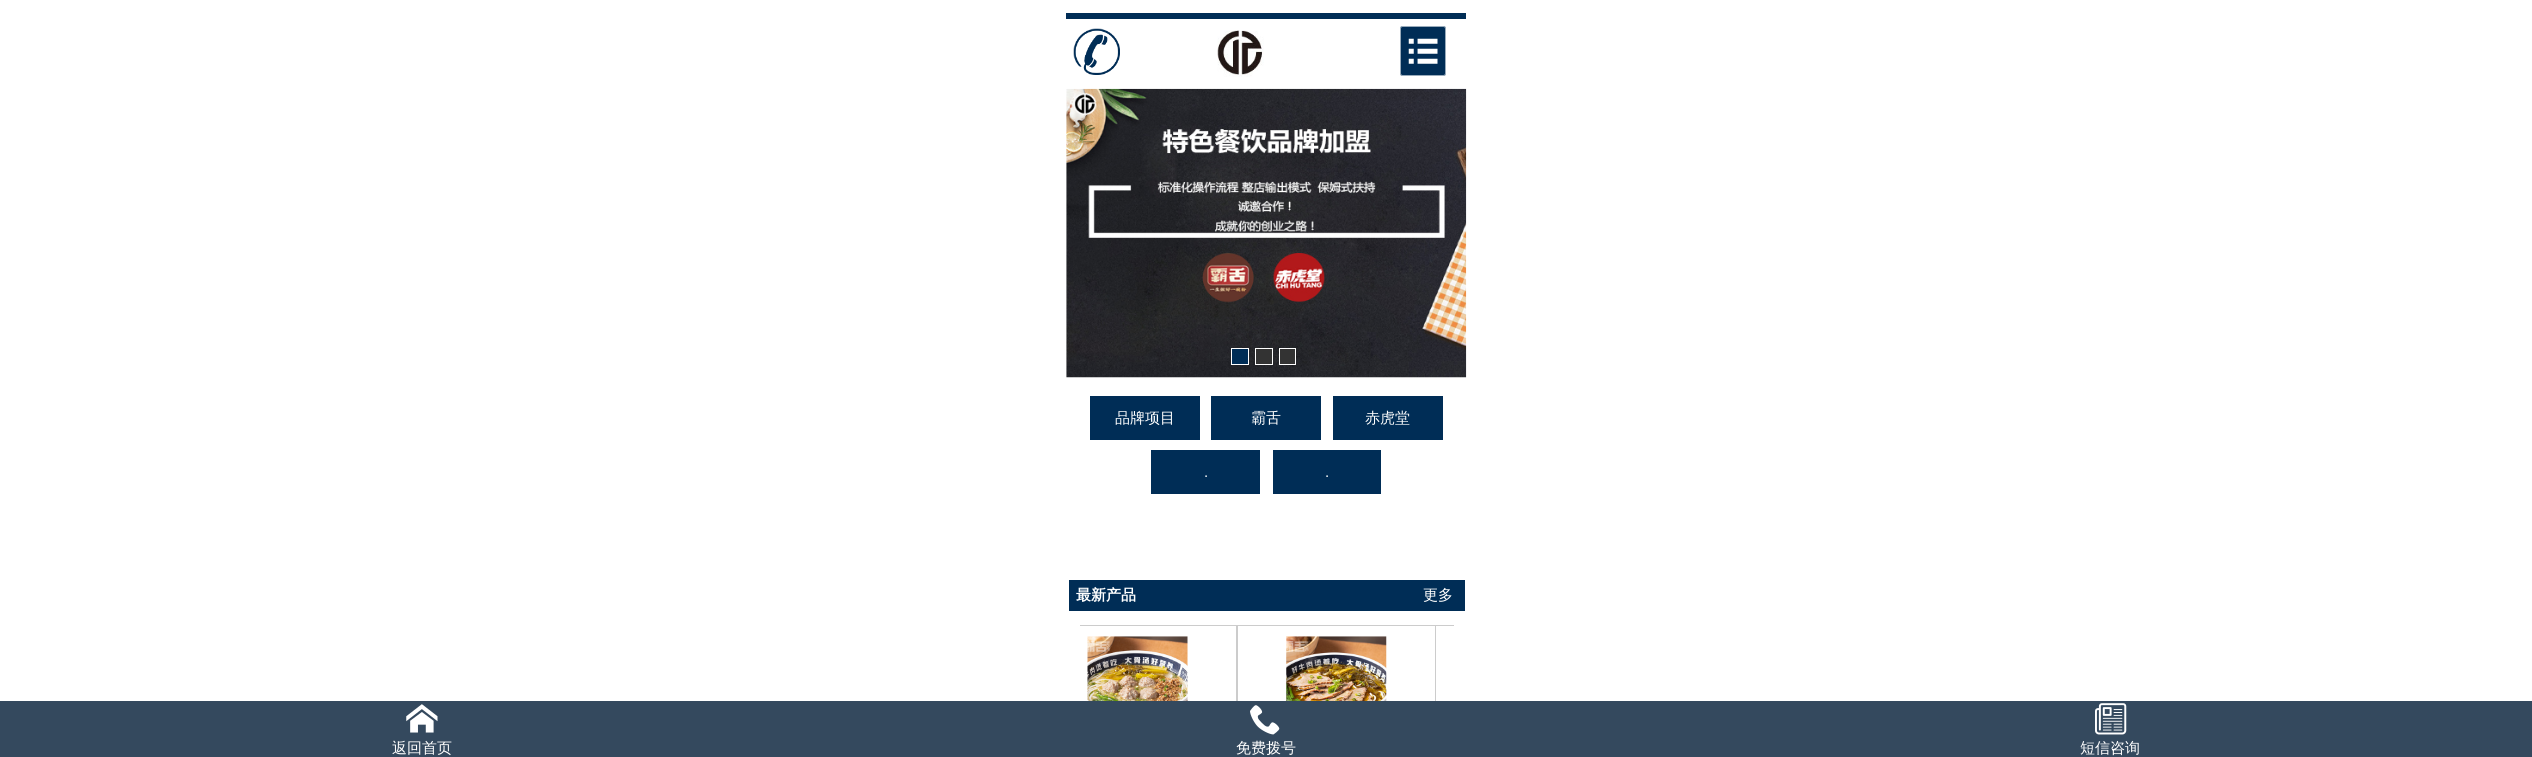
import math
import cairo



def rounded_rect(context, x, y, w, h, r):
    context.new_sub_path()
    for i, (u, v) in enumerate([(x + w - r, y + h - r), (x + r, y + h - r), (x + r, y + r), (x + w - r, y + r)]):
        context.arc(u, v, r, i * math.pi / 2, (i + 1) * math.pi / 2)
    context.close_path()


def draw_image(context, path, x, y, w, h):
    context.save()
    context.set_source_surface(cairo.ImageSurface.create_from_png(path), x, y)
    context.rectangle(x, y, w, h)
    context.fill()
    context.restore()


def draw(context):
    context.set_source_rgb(1, 1, 1)
    context.paint()
    context.set_source_rgb(0, 45 / 255, 86 / 255)
    context.rectangle(1066, 13, 400, 6)
    context.fill()
    draw_image(context, "images/1.png", 1073, 28, 47, 47)
    draw_image(context, "images/2.png", 1217, 30, 47, 47)
    rounded_rect(context, 1400, 26, 46, 50, 2.5)
    context.fill()
    draw_image(context, "images/3.png", 1408, 38, 30, 26)
    rounded_rect(context, 1400.5, 26.5, 45, 49, 2)
    context.set_source_rgba(1, 1, 1, 0.6)
    context.set_line_width(1)
    context.stroke()
    draw_image(context, "images/4.png", 1066, 88, 401, 290)
    context.set_source_rgb(0, 45 / 255, 86 / 255)
    context.rectangle(1231.5, 348.5, 17, 16)
    context.fill_preserve()
    context.set_source_rgb(1, 1, 1)
    context.stroke()
    context.set_source_rgb(51 / 255, 51 / 255, 51 / 255)
    context.rectangle(1255.5, 348.5, 17, 16)
    context.fill_preserve()
    context.set_source_rgb(1, 1, 1)
    context.stroke()
    context.set_source_rgb(51 / 255, 51 / 255, 51 / 255)
    context.rectangle(1279.5, 348.5, 16, 16)
    context.fill_preserve()
    context.set_source_rgb(1, 1, 1)
    context.stroke()
    context.set_source_rgb(0, 45 / 255, 86 / 255)
    context.rectangle(1090, 396, 110, 44)
    context.fill()
    context.rectangle(1211, 396, 110, 44)
    context.fill()
    context.rectangle(1333, 396, 110, 44)
    context.fill()
    context.rectangle(1151, 450, 109, 44)
    context.fill()
    context.rectangle(1273, 450, 108, 44)
    context.fill()
    context.rectangle(1069, 580, 396, 31)
    context.fill()
    context.save()
    context.rectangle(1080, 625, 374, 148)
    context.clip()
    context.rectangle(1038.5, 625.5, 199, 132)
    context.set_source_rgb(204 / 255, 204 / 255, 204 / 255)
    context.stroke()
    context.restore()
    draw_image(context, "images/5.png", 1087, 636, 101, 65)
    context.rectangle(1236.5, 625.5, 199, 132)
    context.set_source_rgb(204 / 255, 204 / 255, 204 / 255)
    context.stroke()
    draw_image(context, "images/6.png", 1286, 636, 101, 65)
    context.save()
    context.rectangle(1080, 625, 374, 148)
    context.clip()
    context.rectangle(1435.5, 625.5, 199, 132)
    context.stroke()
    context.restore()
    context.set_source_rgb(52 / 255, 73 / 255, 94 / 255)
    context.rectangle(0, 701, 2532, 56)
    context.fill()
    draw_image(context, "images/7.png", 406, 704, 32, 29)
    draw_image(context, "images/8.png", 1250, 705, 30, 30)
    draw_image(context, "images/9.png", 2095, 703, 32, 32)
    context.select_font_face("WenQuanYi Zen Hei Medium")
    context.set_font_size(15)
    context.set_source_rgb(1, 1, 1)
    context.move_to(1115, 423)
    context.show_text("品牌项目")
    context.move_to(1251, 423)
    context.show_text("霸舌")
    context.move_to(1365, 423)
    context.show_text("赤虎堂")
    context.select_font_face("Liberation Sans")
    context.move_to(1204, 477)
    context.show_text(".")
    context.move_to(1325, 477)
    context.show_text(".")
    context.select_font_face("WenQuanYi Zen Hei", cairo.FontSlant.NORMAL, cairo.FontWeight.BOLD)
    context.move_to(1076, 600)
    context.show_text("最新产品")
    context.select_font_face("WenQuanYi Zen Hei Medium")
    context.move_to(1423, 600)
    context.show_text("更多")
    context.move_to(392, 753)
    context.show_text("返回首页")
    context.move_to(1236, 753)
    context.show_text("免费拨号")
    context.move_to(2080, 753)
    context.show_text("短信咨询")


surface = cairo.ImageSurface(cairo.Format.RGB24, 2532, 757)
context = cairo.Context(surface)
options = cairo.FontOptions()
options.set_hint_metrics(cairo.HintMetrics.OFF)
options.set_hint_style(cairo.HintStyle.NONE)
context.set_font_options(options)
context.set_miter_limit(4)
draw(context)
surface.write_to_png("out.png")
